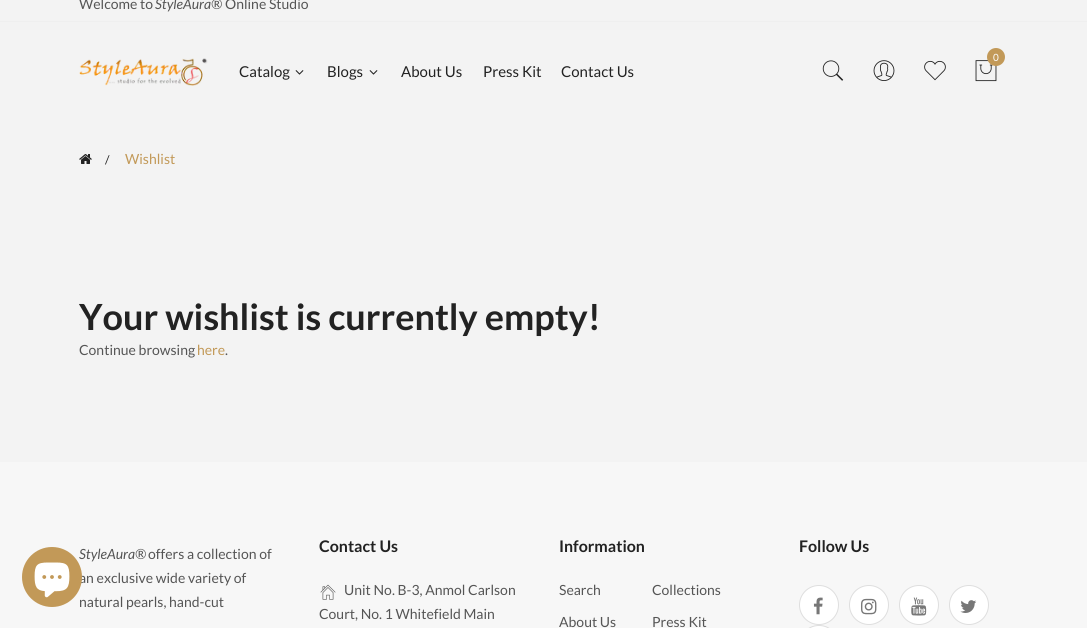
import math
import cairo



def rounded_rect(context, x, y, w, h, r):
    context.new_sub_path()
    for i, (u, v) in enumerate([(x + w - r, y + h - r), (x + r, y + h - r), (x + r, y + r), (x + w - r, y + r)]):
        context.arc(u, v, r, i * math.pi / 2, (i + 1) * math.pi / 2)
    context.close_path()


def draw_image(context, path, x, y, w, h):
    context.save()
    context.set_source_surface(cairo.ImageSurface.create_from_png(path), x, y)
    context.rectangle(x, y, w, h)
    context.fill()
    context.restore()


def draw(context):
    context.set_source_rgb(243 / 255, 243 / 255, 243 / 255)
    context.paint()
    context.set_source_rgb(239 / 255, 239 / 255, 239 / 255)
    context.rectangle(0, 21, 1087, 1)
    context.fill()
    draw_image(context, "images/2.png", 79, 58, 129, 28)
    draw_image(context, "images/3.png", 295, 70, 9, 5)
    draw_image(context, "images/3.png", 369, 70, 9, 5)
    draw_image(context, "images/4.png", 975, 60, 22, 22)
    context.set_source_rgb(194 / 255, 153 / 255, 88 / 255)
    context.arc(996, 57, 9, 0, 2 * math.pi)
    context.fill()
    draw_image(context, "images/5.png", 822, 60, 22, 21)
    draw_image(context, "images/6.png", 873, 60, 22, 21)
    draw_image(context, "images/7.png", 924, 60, 22, 21)
    draw_image(context, "images/8.png", 79, 154, 13, 10)
    context.set_source_rgb(247 / 255, 247 / 255, 247 / 255)
    context.rectangle(0, 462, 1087, 166)
    context.fill()
    draw_image(context, "images/9.png", 320, 584, 16, 16)
    context.set_source_rgb(1, 1, 1)
    context.arc(819, 605, 19.5, 0, 2 * math.pi)
    context.fill_preserve()
    context.set_source_rgb(222 / 255, 222 / 255, 222 / 255)
    context.set_line_width(1)
    context.stroke()
    draw_image(context, "images/10.png", 813, 597, 10, 18)
    context.set_source_rgb(1, 1, 1)
    context.arc(869, 605, 19.5, 0, 2 * math.pi)
    context.fill_preserve()
    context.set_source_rgb(222 / 255, 222 / 255, 222 / 255)
    context.stroke()
    draw_image(context, "images/11.png", 861, 598, 16, 17)
    context.set_source_rgb(1, 1, 1)
    context.arc(919, 605, 19.5, 0, 2 * math.pi)
    context.fill_preserve()
    context.set_source_rgb(222 / 255, 222 / 255, 222 / 255)
    context.stroke()
    draw_image(context, "images/12.png", 911, 597, 16, 19)
    context.set_source_rgb(1, 1, 1)
    context.arc(969, 605, 19.5, 0, 2 * math.pi)
    context.fill_preserve()
    context.set_source_rgb(222 / 255, 222 / 255, 222 / 255)
    context.stroke()
    draw_image(context, "images/13.png", 960, 600, 17, 13)
    context.set_source_rgb(1, 1, 1)
    rounded_rect(context, 799.5, 625.5, 39, 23, 19.5)
    context.fill_preserve()
    context.set_source_rgb(222 / 255, 222 / 255, 222 / 255)
    context.stroke()
    context.select_font_face("Lato")
    context.set_font_size(14)
    context.set_source_rgb(85 / 255, 85 / 255, 85 / 255)
    context.move_to(79, 9)
    context.show_text("Welcome to")
    context.select_font_face("Lato", cairo.FontSlant.ITALIC)
    context.move_to(155, 9)
    context.show_text("StyleAura®")
    context.select_font_face("Lato")
    context.move_to(225, 9)
    context.show_text("Online Studio")
    context.set_font_size(15)
    context.set_source_rgb(34 / 255, 34 / 255, 34 / 255)
    context.move_to(239, 77)
    context.show_text("Catalog")
    context.move_to(327, 77)
    context.show_text("Blogs")
    context.move_to(401, 77)
    context.show_text("About Us")
    context.move_to(483, 77)
    context.show_text("Press Kit")
    context.move_to(561, 77)
    context.show_text("Contact Us")
    context.set_font_size(10)
    context.set_source_rgb(1, 1, 1)
    context.move_to(993, 61)
    context.show_text("0")
    context.set_font_size(12)
    context.set_source_rgb(34 / 255, 34 / 255, 34 / 255)
    context.move_to(105, 164)
    context.show_text("/")
    context.set_font_size(14)
    context.set_source_rgb(194 / 255, 153 / 255, 88 / 255)
    context.move_to(125, 164)
    context.show_text("Wishlist")
    context.select_font_face("Lato", cairo.FontSlant.NORMAL, cairo.FontWeight.BOLD)
    context.set_font_size(36)
    context.set_source_rgb(34 / 255, 34 / 255, 34 / 255)
    context.move_to(79, 330)
    context.show_text("Your wishlist is currently empty!")
    context.select_font_face("Lato")
    context.set_font_size(14)
    context.set_source_rgb(85 / 255, 85 / 255, 85 / 255)
    context.move_to(79, 355)
    context.show_text("Continue browsing")
    context.set_source_rgb(194 / 255, 153 / 255, 88 / 255)
    context.move_to(197, 355)
    context.show_text("here")
    context.set_source_rgb(85 / 255, 85 / 255, 85 / 255)
    context.move_to(225, 355)
    context.show_text(".")
    context.select_font_face("Lato", cairo.FontSlant.NORMAL, cairo.FontWeight.BOLD)
    context.set_font_size(16)
    context.set_source_rgb(34 / 255, 34 / 255, 34 / 255)
    context.move_to(319, 552)
    context.show_text("Contact Us")
    context.select_font_face("Lato")
    context.set_font_size(14)
    context.set_source_rgb(85 / 255, 85 / 255, 85 / 255)
    context.move_to(344, 595)
    context.show_text("Unit No. B-3, Anmol Carlson")
    context.move_to(319, 619)
    context.show_text("Court, No. 1 Whitefield Main")
    context.select_font_face("Lato", cairo.FontSlant.NORMAL, cairo.FontWeight.BOLD)
    context.set_font_size(16)
    context.set_source_rgb(34 / 255, 34 / 255, 34 / 255)
    context.move_to(559, 552)
    context.show_text("Information")
    context.select_font_face("Lato")
    context.set_font_size(14)
    context.set_source_rgb(85 / 255, 85 / 255, 85 / 255)
    context.move_to(559, 595)
    context.show_text("Search")
    context.move_to(652, 595)
    context.show_text("Collections")
    context.move_to(559, 627)
    context.show_text("About Us")
    context.move_to(652, 627)
    context.show_text("Press Kit")
    context.select_font_face("Lato", cairo.FontSlant.NORMAL, cairo.FontWeight.BOLD)
    context.set_font_size(16)
    context.set_source_rgb(34 / 255, 34 / 255, 34 / 255)
    context.move_to(799, 552)
    context.show_text("Follow Us")
    context.select_font_face("Lato", cairo.FontSlant.ITALIC)
    context.set_font_size(14)
    context.set_source_rgb(85 / 255, 85 / 255, 85 / 255)
    context.move_to(79, 559)
    context.show_text("StyleAura®")
    context.select_font_face("Lato")
    context.move_to(148, 559)
    context.show_text("offers a collection of")
    context.move_to(79, 583)
    context.show_text("an exclusive wide variety of")
    context.move_to(79, 607)
    context.show_text("natural pearls, hand-cut")
    context.set_source_rgb(194 / 255, 153 / 255, 88 / 255)
    context.new_path()
    context.arc(52, 577, 30, 0, 2 * math.pi)
    context.fill()
    draw_image(context, "images/1.png", 34, 562, 36, 36)


surface = cairo.ImageSurface(cairo.Format.RGB24, 1087, 628)
context = cairo.Context(surface)
options = cairo.FontOptions()
options.set_hint_metrics(cairo.HintMetrics.OFF)
options.set_hint_style(cairo.HintStyle.NONE)
context.set_font_options(options)
context.set_miter_limit(4)
draw(context)
surface.write_to_png("out.png")
